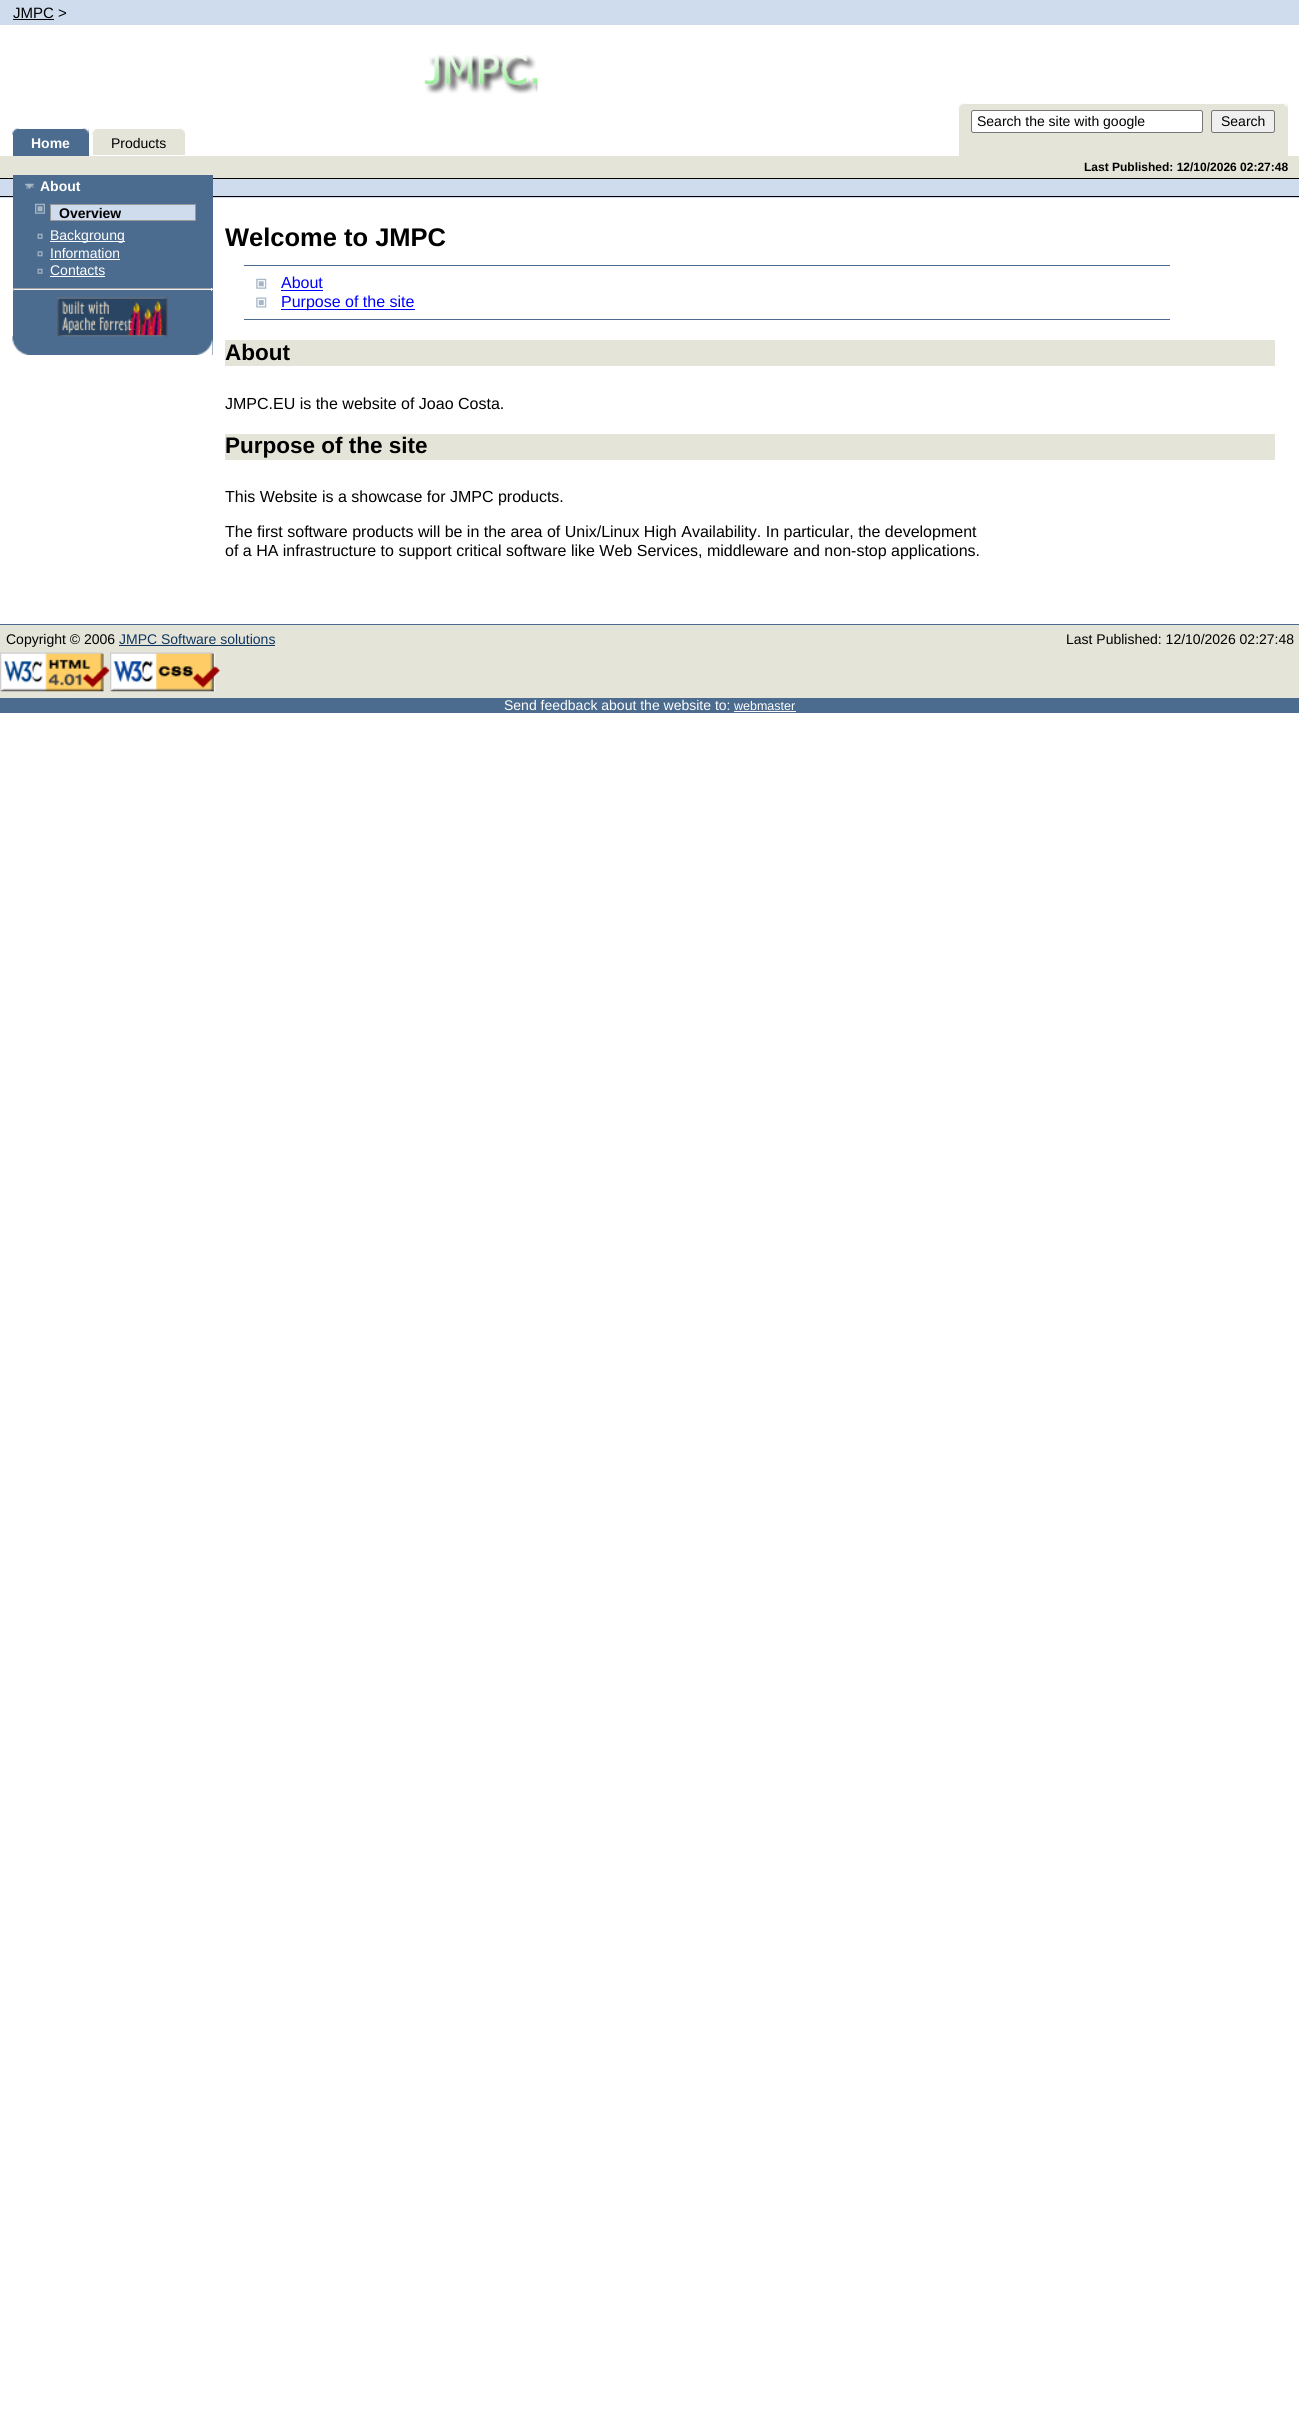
import math
import cairo



def rounded_rect(context, x, y, w, h, r):
    context.new_sub_path()
    for i, (u, v) in enumerate([(x + w - r, y + h - r), (x + r, y + h - r), (x + r, y + r), (x + w - r, y + r)]):
        context.arc(u, v, r, i * math.pi / 2, (i + 1) * math.pi / 2)
    context.close_path()


def draw_image(context, path, x, y, w, h):
    context.save()
    context.set_source_surface(cairo.ImageSurface.create_from_png(path), x, y)
    context.rectangle(x, y, w, h)
    context.fill()
    context.restore()


def draw(context):
    context.set_source_rgb(1, 1, 1)
    context.paint()
    context.set_source_rgb(207 / 255, 220 / 255, 237 / 255)
    context.rectangle(0, 0, 1299, 25)
    context.fill()
    context.set_source_rgb(0, 0, 0)
    context.rectangle(13, 19, 41, 1)
    context.fill()
    draw_image(context, "images/1.png", 424, 55, 114, 39)
    context.set_source_rgb(229 / 255, 228 / 255, 217 / 255)
    context.rectangle(959, 104, 329, 52)
    context.fill()
    draw_image(context, "images/2.png", 958, 103, 7, 7)
    draw_image(context, "images/3.png", 1281, 103, 7, 5)
    context.set_source_rgb(1, 1, 1)
    rounded_rect(context, 971.5, 110.5, 231, 22, 2)
    context.fill_preserve()
    context.set_source_rgb(118 / 255, 118 / 255, 118 / 255)
    context.set_line_width(1)
    context.stroke()
    context.set_source_rgb(239 / 255, 239 / 255, 239 / 255)
    rounded_rect(context, 1211.5, 110.5, 63, 22, 2)
    context.fill_preserve()
    context.set_source_rgb(118 / 255, 118 / 255, 118 / 255)
    context.stroke()
    context.set_source_rgb(76 / 255, 108 / 255, 143 / 255)
    context.rectangle(13, 129, 76, 27)
    context.fill()
    draw_image(context, "images/4.png", 82, 128, 7, 6)
    draw_image(context, "images/5.png", 12, 128, 7, 7)
    context.set_source_rgb(229 / 255, 228 / 255, 217 / 255)
    context.rectangle(93, 129, 92, 26)
    context.fill()
    draw_image(context, "images/6.png", 179, 128, 6, 5)
    draw_image(context, "images/7.png", 92, 128, 7, 7)
    context.rectangle(0, 156, 1299, 22)
    context.fill()
    context.set_source_rgb(207 / 255, 220 / 255, 237 / 255)
    context.rectangle(0, 179, 1299, 19)
    context.fill()
    context.set_source_rgb(0, 0, 0)
    context.rectangle(0, 178, 1299, 1)
    context.fill()
    context.rectangle(0, 196, 1299, 1)
    context.fill()
    context.set_source_rgb(76 / 255, 108 / 255, 143 / 255)
    context.rectangle(13, 175, 200, 180)
    context.fill()
    draw_image(context, "images/8.png", 25, 183, 9, 6)
    draw_image(context, "images/9.png", 35, 203, 10, 11)
    context.set_source_rgb(207 / 255, 220 / 255, 237 / 255)
    context.rectangle(50.5, 204.5, 145, 16)
    context.fill_preserve()
    context.set_source_rgb(153 / 255, 153 / 255, 153 / 255)
    context.stroke()
    draw_image(context, "images/10.png", 37, 233, 6, 6)
    context.set_source_rgb(1, 1, 1)
    context.rectangle(50, 241, 75, 1)
    context.fill()
    draw_image(context, "images/11.png", 37, 251, 6, 6)
    context.rectangle(50, 259, 70, 1)
    context.fill()
    draw_image(context, "images/10.png", 37, 268, 6, 6)
    context.rectangle(50, 276, 55, 1)
    context.fill()
    context.set_source_rgb(159 / 255, 159 / 255, 159 / 255)
    context.rectangle(13, 288, 200, 1)
    context.fill()
    context.set_source_rgb(238 / 255, 238 / 255, 238 / 255)
    context.rectangle(211, 288, 1, 3)
    context.fill()
    context.rectangle(13, 289, 200, 1)
    context.fill()
    context.set_source_rgb(159 / 255, 159 / 255, 159 / 255)
    context.rectangle(13, 288, 1, 3)
    context.fill()
    draw_image(context, "images/12.png", 57, 297, 111, 40)
    draw_image(context, "images/13.png", 196, 339, 17, 16)
    draw_image(context, "images/14.png", 12, 336, 17, 19)
    context.set_source_rgb(76 / 255, 108 / 255, 143 / 255)
    context.rectangle(244, 265, 926, 1)
    context.fill()
    context.rectangle(244, 319, 926, 1)
    context.fill()
    draw_image(context, "images/15.png", 256, 278, 11, 11)
    context.set_source_rgb(0, 0, 1)
    context.rectangle(281, 290, 42, 1)
    context.fill()
    draw_image(context, "images/16.png", 256, 297, 11, 11)
    context.rectangle(281, 309, 134, 1)
    context.fill()
    context.set_source_rgb(229 / 255, 228 / 255, 217 / 255)
    context.rectangle(225, 340, 1050, 26)
    context.fill()
    context.rectangle(225, 434, 1050, 26)
    context.fill()
    context.rectangle(0, 625, 1299, 73)
    context.fill()
    context.set_source_rgb(76 / 255, 108 / 255, 143 / 255)
    context.rectangle(0, 624, 1299, 1)
    context.fill()
    context.set_source_rgb(15 / 255, 54 / 255, 96 / 255)
    context.rectangle(119, 645, 156, 1)
    context.fill()
    draw_image(context, "images/17.png", 0, 652, 110, 40)
    draw_image(context, "images/18.png", 110, 652, 110, 40)
    context.set_source_rgb(76 / 255, 108 / 255, 143 / 255)
    context.rectangle(0, 698, 1299, 15)
    context.fill()
    context.set_source_rgb(1, 1, 1)
    context.rectangle(734, 711, 62, 1)
    context.fill()
    context.select_font_face("Liberation Sans")
    context.set_font_size(15)
    context.set_source_rgb(0, 0, 0)
    context.move_to(13, 18)
    context.show_text("JMPC >")
    context.set_font_size(14)
    context.move_to(977, 126)
    context.show_text("Search the site with google")
    context.move_to(1221, 126)
    context.show_text("Search")
    context.select_font_face("Liberation Sans", cairo.FontSlant.NORMAL, cairo.FontWeight.BOLD)
    context.set_source_rgb(1, 1, 1)
    context.move_to(31, 148)
    context.show_text("Home")
    context.select_font_face("Liberation Sans")
    context.set_source_rgb(0, 0, 0)
    context.move_to(111, 148)
    context.show_text("Products")
    context.select_font_face("Liberation Sans", cairo.FontSlant.NORMAL, cairo.FontWeight.BOLD)
    context.set_font_size(12)
    context.move_to(1084, 171)
    context.show_text("Last Published: 12/10/2026 02:27:48")
    context.set_font_size(14)
    context.set_source_rgb(1, 1, 1)
    context.move_to(40, 191)
    context.show_text("About")
    context.set_source_rgb(0, 0, 0)
    context.move_to(59, 218)
    context.show_text("Overview")
    context.select_font_face("Liberation Sans")
    context.set_source_rgb(1, 1, 1)
    context.move_to(50, 240)
    context.show_text("Backgroung")
    context.move_to(50, 258)
    context.show_text("Information")
    context.move_to(50, 275)
    context.show_text("Contacts")
    context.select_font_face("Liberation Sans", cairo.FontSlant.NORMAL, cairo.FontWeight.BOLD)
    context.set_font_size(25.5)
    context.set_source_rgb(0, 0, 0)
    context.move_to(225, 246)
    context.show_text("Welcome to JMPC")
    context.select_font_face("Liberation Sans")
    context.set_font_size(16)
    context.set_source_rgb(0, 0, 1)
    context.move_to(281, 288)
    context.show_text("About")
    context.move_to(281, 307)
    context.show_text("Purpose of the site")
    context.select_font_face("Liberation Sans", cairo.FontSlant.NORMAL, cairo.FontWeight.BOLD)
    context.set_font_size(22.5)
    context.set_source_rgb(0, 0, 0)
    context.move_to(225, 360)
    context.show_text("About")
    context.select_font_face("Liberation Sans")
    context.set_font_size(16)
    context.move_to(225, 409)
    context.show_text("JMPC.EU is the website of Joao Costa.")
    context.select_font_face("Liberation Sans", cairo.FontSlant.NORMAL, cairo.FontWeight.BOLD)
    context.set_font_size(22.5)
    context.move_to(225, 453)
    context.show_text("Purpose of the site")
    context.select_font_face("Liberation Sans")
    context.set_font_size(16)
    context.move_to(225, 502)
    context.show_text("This Website is a showcase for JMPC products.")
    context.move_to(225, 537)
    context.show_text("The first software products will be in the area of Unix/Linux High Availability. In particular, the development")
    context.move_to(225, 556)
    context.show_text("of a HA infrastructure to support critical software like Web Services, middleware and non-stop applications.")
    context.set_font_size(14)
    context.move_to(6, 644)
    context.show_text("Copyright © 2006")
    context.set_source_rgb(15 / 255, 54 / 255, 96 / 255)
    context.move_to(119, 644)
    context.show_text("JMPC Software solutions")
    context.set_source_rgb(0, 0, 0)
    context.move_to(1066, 644)
    context.show_text("Last Published: 12/10/2026 02:27:48")
    context.set_source_rgb(1, 1, 1)
    context.move_to(504, 710)
    context.show_text("Send feedback about the website to:")
    context.set_font_size(12.5)
    context.move_to(734, 710)
    context.show_text("webmaster")


surface = cairo.ImageSurface(cairo.Format.RGB24, 1299, 2416)
context = cairo.Context(surface)
options = cairo.FontOptions()
options.set_hint_metrics(cairo.HintMetrics.OFF)
options.set_hint_style(cairo.HintStyle.NONE)
context.set_font_options(options)
context.set_miter_limit(4)
draw(context)
surface.write_to_png("out.png")
